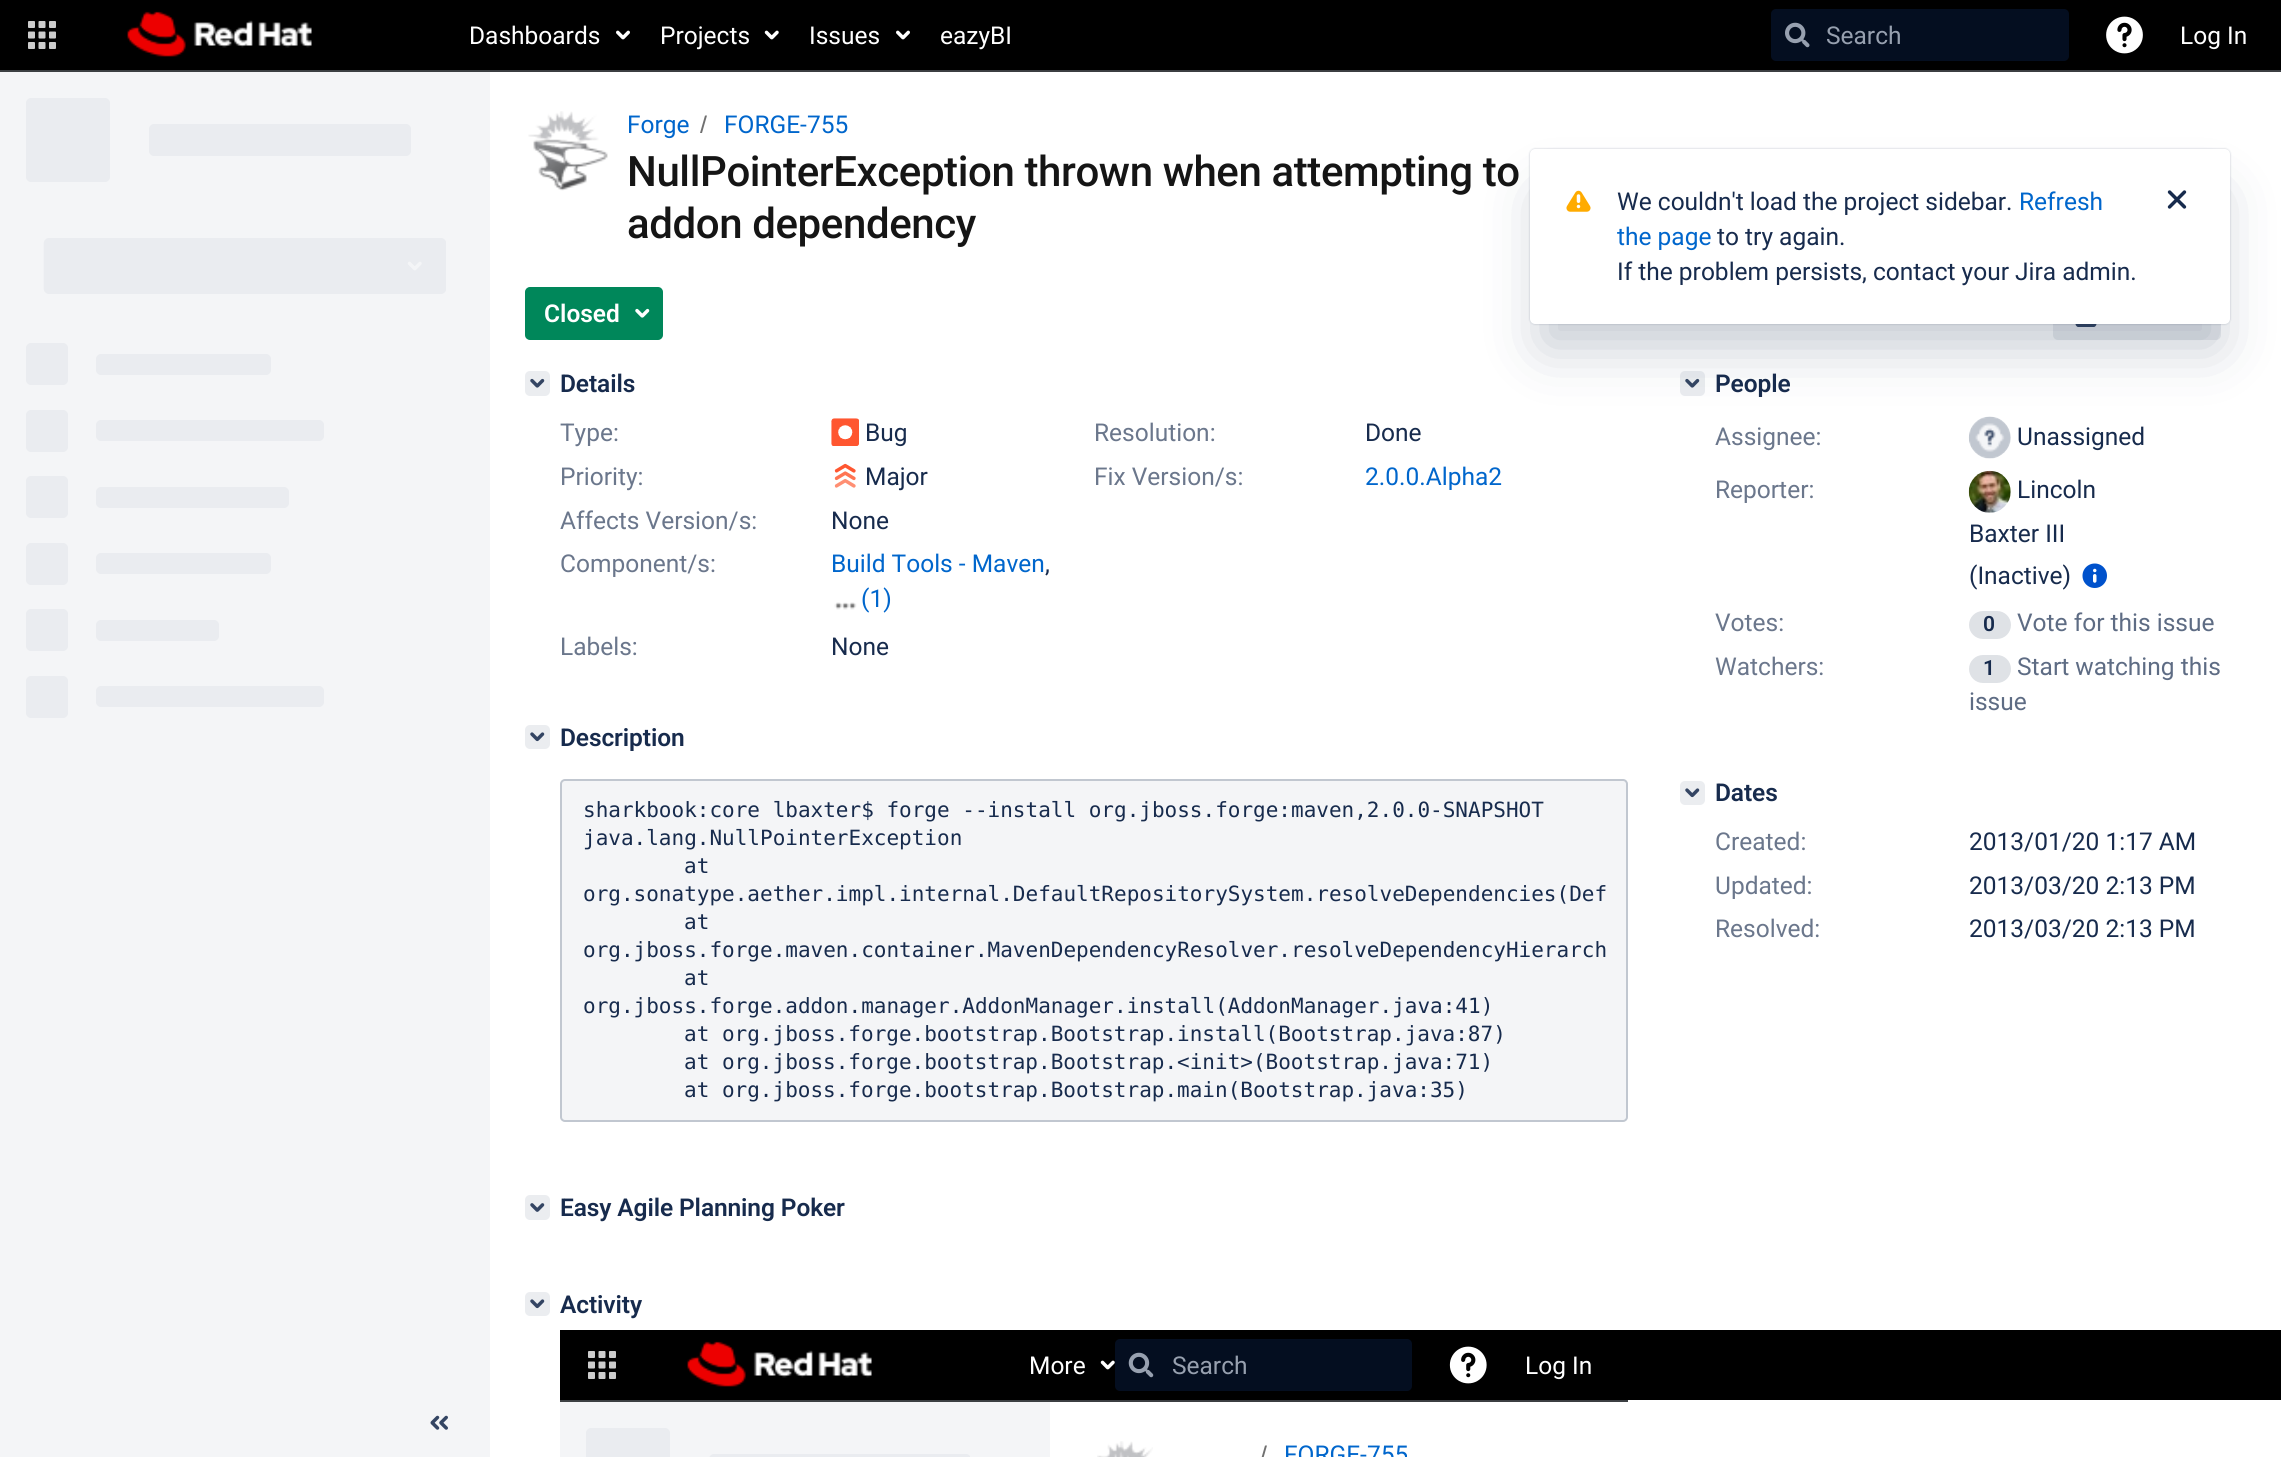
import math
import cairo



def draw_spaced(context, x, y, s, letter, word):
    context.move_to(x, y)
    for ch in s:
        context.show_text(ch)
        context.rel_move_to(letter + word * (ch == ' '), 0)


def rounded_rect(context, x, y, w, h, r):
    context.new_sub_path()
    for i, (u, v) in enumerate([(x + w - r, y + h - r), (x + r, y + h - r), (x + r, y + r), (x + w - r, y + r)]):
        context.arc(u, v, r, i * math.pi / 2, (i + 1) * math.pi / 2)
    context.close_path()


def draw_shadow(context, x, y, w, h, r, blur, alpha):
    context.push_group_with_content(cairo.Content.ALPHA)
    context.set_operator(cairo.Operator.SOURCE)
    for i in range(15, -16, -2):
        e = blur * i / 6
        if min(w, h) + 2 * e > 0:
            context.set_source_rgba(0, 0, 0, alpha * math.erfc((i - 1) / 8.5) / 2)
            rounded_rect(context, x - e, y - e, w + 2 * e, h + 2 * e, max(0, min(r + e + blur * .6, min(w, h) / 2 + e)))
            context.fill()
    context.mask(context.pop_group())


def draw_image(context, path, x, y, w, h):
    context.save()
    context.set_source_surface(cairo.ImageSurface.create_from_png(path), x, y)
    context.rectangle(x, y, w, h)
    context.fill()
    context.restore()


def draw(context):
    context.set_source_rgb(1, 1, 1)
    context.paint()
    context.set_source_rgb(0, 0, 0)
    context.rectangle(0, 0, 2281, 70)
    context.fill()
    context.set_source_rgb(60 / 255, 63 / 255, 66 / 255)
    context.rectangle(0, 70, 2281, 2)
    context.fill()
    draw_image(context, "images/1.png", 28, 21, 28, 28)
    draw_image(context, "images/2.png", 127, 11, 185, 46)
    draw_image(context, "images/3.png", 616, 30, 14, 10)
    draw_image(context, "images/4.png", 764, 30, 15, 10)
    draw_image(context, "images/3.png", 896, 30, 14, 10)
    context.set_source_rgb(4 / 255, 14 / 255, 32 / 255)
    rounded_rect(context, 1771, 9, 298, 52, 5)
    context.fill()
    draw_image(context, "images/5.png", 1785, 22, 25, 26)
    draw_image(context, "images/6.png", 2106, 16, 37, 38)
    context.set_source_rgb(244 / 255, 245 / 255, 247 / 255)
    context.rectangle(0, 72, 490, 1385)
    context.fill()
    draw_image(context, "images/7.png", 26, 98, 420, 620)
    draw_image(context, "images/8.png", 430, 1415, 18, 15)
    draw_image(context, "images/9.png", 528, 111, 80, 80)
    context.set_source_rgb(112 / 255, 112 / 255, 112 / 255)
    context.new_path()
    context.move_to(702, 133)
    context.line_to(707, 115.5)
    context.line_to(705, 115.5)
    context.line_to(700, 133)
    context.close_path()
    context.fill()
    context.set_source_rgb(0, 135 / 255, 90 / 255)
    rounded_rect(context, 526, 288, 136, 51, 4)
    context.fill_preserve()
    context.stroke()
    draw_image(context, "images/10.png", 635, 308, 15, 10)
    context.set_source_rgb(235 / 255, 237 / 255, 240 / 255)
    rounded_rect(context, 2053, 287, 168, 53, 5)
    context.fill()
    draw_image(context, "images/11.png", 2075, 324, 22, 3)
    rounded_rect(context, 525, 371, 25, 25, 5)
    context.fill()
    draw_image(context, "images/12.png", 530, 378, 15, 10)
    draw_image(context, "images/13.png", 831, 418, 28, 28)
    draw_image(context, "images/14.png", 834, 463, 22, 25)
    draw_image(context, "images/15.png", 834, 602, 23, 8)
    rounded_rect(context, 525, 725, 25, 24, 5)
    context.fill()
    draw_image(context, "images/16.png", 530, 732, 15, 10)
    context.set_source_rgb(244 / 255, 245 / 255, 247 / 255)
    rounded_rect(context, 561, 780, 1066, 341, 4)
    context.fill_preserve()
    context.set_source_rgb(193 / 255, 199 / 255, 208 / 255)
    context.stroke()
    context.set_source_rgb(235 / 255, 237 / 255, 240 / 255)
    rounded_rect(context, 525, 1195, 25, 25, 5)
    context.fill()
    draw_image(context, "images/17.png", 530, 1203, 15, 9)
    rounded_rect(context, 525, 1292, 25, 24, 5)
    context.fill()
    draw_image(context, "images/16.png", 530, 1299, 15, 10)
    context.set_source_rgb(0, 0, 0)
    context.rectangle(560, 1330, 1721, 70)
    context.fill()
    context.set_source_rgb(60 / 255, 63 / 255, 66 / 255)
    context.rectangle(560, 1400, 1068, 2)
    context.fill()
    draw_image(context, "images/1.png", 588, 1351, 28, 28)
    draw_image(context, "images/2.png", 687, 1341, 185, 46)
    draw_image(context, "images/4.png", 1100, 1360, 15, 10)
    context.set_source_rgb(4 / 255, 14 / 255, 32 / 255)
    rounded_rect(context, 1115, 1339, 297, 52, 5)
    context.fill()
    draw_image(context, "images/18.png", 1128, 1352, 26, 26)
    draw_image(context, "images/19.png", 1449, 1346, 38, 38)
    context.set_source_rgb(244 / 255, 245 / 255, 247 / 255)
    context.rectangle(560, 1402, 490, 55)
    context.fill()
    draw_image(context, "images/20.png", 586, 1428, 384, 29)
    draw_image(context, "images/21.png", 1097, 1441, 56, 16)
    context.set_source_rgb(112 / 255, 112 / 255, 112 / 255)
    context.new_path()
    context.move_to(1262, 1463)
    context.line_to(1267, 1445.5)
    context.line_to(1265, 1445.5)
    context.line_to(1260, 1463)
    context.close_path()
    context.fill()
    context.set_source_rgb(235 / 255, 237 / 255, 240 / 255)
    rounded_rect(context, 1680, 371, 25, 25, 5)
    context.fill()
    draw_image(context, "images/12.png", 1685, 378, 15, 10)
    draw_image(context, "images/22.png", 1968, 416, 43, 43)
    draw_image(context, "images/23.png", 1968, 470, 43, 43)
    draw_image(context, "images/24.png", 2082, 563, 25, 25)
    context.set_source_rgb(223 / 255, 226 / 255, 230 / 255)
    rounded_rect(context, 1969, 611, 42, 28, 14)
    context.fill()
    rounded_rect(context, 1969, 655, 42, 28, 14)
    context.fill()
    context.set_source_rgb(235 / 255, 237 / 255, 240 / 255)
    rounded_rect(context, 1680, 781, 25, 24, 5)
    context.fill()
    draw_image(context, "images/16.png", 1685, 788, 15, 10)
    context.set_source_rgb(9 / 255, 30 / 255, 66 / 255)
    draw_shadow(context, 1530, 149, 700, 175, 5, 1, 0.25)
    draw_shadow(context, 1544, 198, 672, 147, 0, 28, 0.25)
    context.set_source_rgb(1, 1, 1)
    rounded_rect(context, 1530, 149, 700, 175, 5)
    context.fill()
    draw_image(context, "images/25.png", 1566, 190, 25, 22)
    draw_image(context, "images/26.png", 2167, 190, 20, 19)
    context.select_font_face("Roboto")
    context.set_font_size(24.5)
    context.move_to(469, 44)
    context.show_text("Dashboards")
    context.move_to(660, 44)
    context.show_text("Projects")
    context.move_to(809, 44)
    context.show_text("Issues")
    context.move_to(940, 44)
    context.show_text("eazyBI")
    context.set_source_rgb(151 / 255, 160 / 255, 175 / 255)
    context.move_to(1826, 44)
    context.show_text("Search")
    context.set_source_rgb(1, 1, 1)
    context.move_to(2180, 44)
    context.show_text("Log In")
    context.set_source_rgb(0, 102 / 255, 204 / 255)
    context.move_to(627, 133)
    context.show_text("Forge")
    context.move_to(724, 133)
    context.show_text("FORGE-755")
    context.select_font_face("Roboto Medium")
    context.set_font_size(42)
    context.set_source_rgb(21 / 255, 21 / 255, 21 / 255)
    draw_spaced(context, 627, 186, "NullPointerException thrown when attempting to", -0.4, 0)
    draw_spaced(context, 627, 238, "addon dependency", -0.4, 0)
    context.select_font_face("Roboto SemiBold")
    context.set_font_size(24.5)
    context.set_source_rgb(1, 1, 1)
    context.move_to(544, 322)
    context.show_text("Closed")
    context.set_source_rgb(23 / 255, 43 / 255, 77 / 255)
    draw_spaced(context, 560, 392, "Details", -0.1, 0)
    context.select_font_face("Roboto")
    context.set_source_rgb(107 / 255, 119 / 255, 140 / 255)
    context.move_to(560, 441)
    context.show_text("Type:")
    context.set_source_rgb(23 / 255, 43 / 255, 77 / 255)
    context.move_to(865, 441)
    context.show_text("Bug")
    context.set_source_rgb(107 / 255, 119 / 255, 140 / 255)
    context.move_to(1094, 441)
    context.show_text("Resolution:")
    context.set_source_rgb(23 / 255, 43 / 255, 77 / 255)
    context.move_to(1365, 441)
    context.show_text("Done")
    context.set_source_rgb(107 / 255, 119 / 255, 140 / 255)
    context.move_to(560, 485)
    context.show_text("Priority:")
    context.set_source_rgb(23 / 255, 43 / 255, 77 / 255)
    context.move_to(865, 485)
    context.show_text("Major")
    context.set_source_rgb(107 / 255, 119 / 255, 140 / 255)
    context.move_to(1094, 485)
    context.show_text("Fix Version/s:")
    context.set_source_rgb(0, 102 / 255, 204 / 255)
    context.move_to(1365, 485)
    context.show_text("2.0.0.Alpha2")
    context.set_source_rgb(107 / 255, 119 / 255, 140 / 255)
    context.move_to(560, 529)
    context.show_text("Affects Version/s:")
    context.set_source_rgb(23 / 255, 43 / 255, 77 / 255)
    context.move_to(831, 529)
    context.show_text("None")
    context.set_source_rgb(107 / 255, 119 / 255, 140 / 255)
    context.move_to(560, 572)
    context.show_text("Component/s:")
    context.set_source_rgb(0, 102 / 255, 204 / 255)
    context.move_to(831, 572)
    context.show_text("Build Tools - Maven")
    context.set_source_rgb(23 / 255, 43 / 255, 77 / 255)
    context.move_to(1045, 572)
    context.show_text(",")
    context.set_source_rgb(0, 102 / 255, 204 / 255)
    context.move_to(861, 607)
    context.show_text("(1)")
    context.set_source_rgb(107 / 255, 119 / 255, 140 / 255)
    context.move_to(560, 655)
    context.show_text("Labels:")
    context.set_source_rgb(23 / 255, 43 / 255, 77 / 255)
    context.move_to(831, 655)
    context.show_text("None")
    context.select_font_face("Roboto SemiBold")
    draw_spaced(context, 560, 746, "Description", -0.1, 0)
    context.select_font_face("DejaVu Sans Mono")
    context.set_font_size(21)
    context.move_to(583, 817)
    context.show_text("sharkbook:core lbaxter$ forge --install org.jboss.forge:maven,2.0.0-SNAPSHOT")
    context.move_to(583, 845)
    context.show_text("java.lang.NullPointerException")
    context.move_to(684, 873)
    context.show_text("at")
    context.move_to(583, 901)
    context.show_text("org.sonatype.aether.impl.internal.DefaultRepositorySystem.resolveDependencies(Def")
    context.move_to(684, 929)
    context.show_text("at")
    context.move_to(583, 957)
    context.show_text("org.jboss.forge.maven.container.MavenDependencyResolver.resolveDependencyHierarch")
    context.move_to(684, 985)
    context.show_text("at")
    context.move_to(583, 1013)
    context.show_text("org.jboss.forge.addon.manager.AddonManager.install(AddonManager.java:41)")
    context.move_to(684, 1041)
    context.show_text("at org.jboss.forge.bootstrap.Bootstrap.install(Bootstrap.java:87)")
    context.move_to(684, 1069)
    context.show_text("at org.jboss.forge.bootstrap.Bootstrap.<init>(Bootstrap.java:71)")
    context.move_to(684, 1097)
    context.show_text("at org.jboss.forge.bootstrap.Bootstrap.main(Bootstrap.java:35)")
    context.select_font_face("Roboto SemiBold")
    context.set_font_size(24.5)
    draw_spaced(context, 560, 1216, "Easy Agile Planning Poker", -0.1, 0)
    draw_spaced(context, 560, 1313, "Activity", -0.1, 0)
    context.select_font_face("Roboto")
    context.set_source_rgb(1, 1, 1)
    context.move_to(1029, 1374)
    context.show_text("More")
    context.set_source_rgb(151 / 255, 160 / 255, 175 / 255)
    context.move_to(1172, 1374)
    context.show_text("Search")
    context.set_source_rgb(1, 1, 1)
    context.move_to(1525, 1374)
    context.show_text("Log In")
    context.set_source_rgb(0, 102 / 255, 204 / 255)
    context.move_to(1284, 1463)
    context.show_text("FORGE-755")
    context.select_font_face("Roboto SemiBold")
    context.set_source_rgb(23 / 255, 43 / 255, 77 / 255)
    draw_spaced(context, 1715, 392, "People", -0.1, 0)
    context.select_font_face("Roboto")
    context.set_source_rgb(107 / 255, 119 / 255, 140 / 255)
    context.move_to(1715, 445)
    context.show_text("Assignee:")
    context.set_source_rgb(23 / 255, 43 / 255, 77 / 255)
    context.move_to(2017, 445)
    context.show_text("Unassigned")
    context.set_source_rgb(107 / 255, 119 / 255, 140 / 255)
    context.move_to(1715, 498)
    context.show_text("Reporter:")
    context.set_source_rgb(23 / 255, 43 / 255, 77 / 255)
    context.move_to(2017, 498)
    context.show_text("Lincoln")
    context.move_to(1969, 542)
    context.show_text("Baxter III")
    context.move_to(1969, 584)
    context.show_text("(Inactive)")
    context.set_source_rgb(107 / 255, 119 / 255, 140 / 255)
    context.move_to(1715, 631)
    context.show_text("Votes:")
    context.select_font_face("Roboto SemiBold")
    context.set_font_size(21)
    context.set_source_rgb(23 / 255, 43 / 255, 77 / 255)
    context.move_to(1983, 631)
    context.show_text("0")
    context.select_font_face("Roboto")
    context.set_font_size(24.5)
    context.set_source_rgb(94 / 255, 108 / 255, 132 / 255)
    context.move_to(2017, 631)
    context.show_text("Vote for this issue")
    context.set_source_rgb(107 / 255, 119 / 255, 140 / 255)
    context.move_to(1715, 675)
    context.show_text("Watchers:")
    context.select_font_face("Roboto SemiBold")
    context.set_font_size(21)
    context.set_source_rgb(23 / 255, 43 / 255, 77 / 255)
    context.move_to(1983, 675)
    context.show_text("1")
    context.select_font_face("Roboto")
    context.set_font_size(24.5)
    context.set_source_rgb(94 / 255, 108 / 255, 132 / 255)
    context.move_to(2017, 675)
    context.show_text("Start watching this")
    context.move_to(1969, 710)
    context.show_text("issue")
    context.select_font_face("Roboto SemiBold")
    context.set_source_rgb(23 / 255, 43 / 255, 77 / 255)
    draw_spaced(context, 1715, 801, "Dates", -0.1, 0)
    context.select_font_face("Roboto")
    context.set_source_rgb(107 / 255, 119 / 255, 140 / 255)
    context.move_to(1715, 850)
    context.show_text("Created:")
    context.set_source_rgb(23 / 255, 43 / 255, 77 / 255)
    context.move_to(1969, 850)
    context.show_text("2013/01/20 1:17 AM")
    context.set_source_rgb(107 / 255, 119 / 255, 140 / 255)
    context.move_to(1715, 894)
    context.show_text("Updated:")
    context.set_source_rgb(23 / 255, 43 / 255, 77 / 255)
    context.move_to(1969, 894)
    context.show_text("2013/03/20 2:13 PM")
    context.set_source_rgb(107 / 255, 119 / 255, 140 / 255)
    context.move_to(1715, 937)
    context.show_text("Resolved:")
    context.set_source_rgb(23 / 255, 43 / 255, 77 / 255)
    context.move_to(1969, 937)
    context.show_text("2013/03/20 2:13 PM")
    context.move_to(1617, 210)
    context.show_text("We couldn't load the project sidebar.")
    context.set_source_rgb(0, 102 / 255, 204 / 255)
    context.move_to(2019, 210)
    context.show_text("Refresh")
    context.move_to(1617, 245)
    context.show_text("the page")
    context.set_source_rgb(23 / 255, 43 / 255, 77 / 255)
    context.move_to(1717, 245)
    context.show_text("to try again.")
    context.move_to(1617, 280)
    context.show_text("If the problem persists, contact your Jira admin.")


surface = cairo.ImageSurface(cairo.Format.RGB24, 2281, 1457)
context = cairo.Context(surface)
options = cairo.FontOptions()
options.set_hint_metrics(cairo.HintMetrics.OFF)
options.set_hint_style(cairo.HintStyle.NONE)
context.set_font_options(options)
context.set_miter_limit(4)
draw(context)
surface.write_to_png("out.png")
